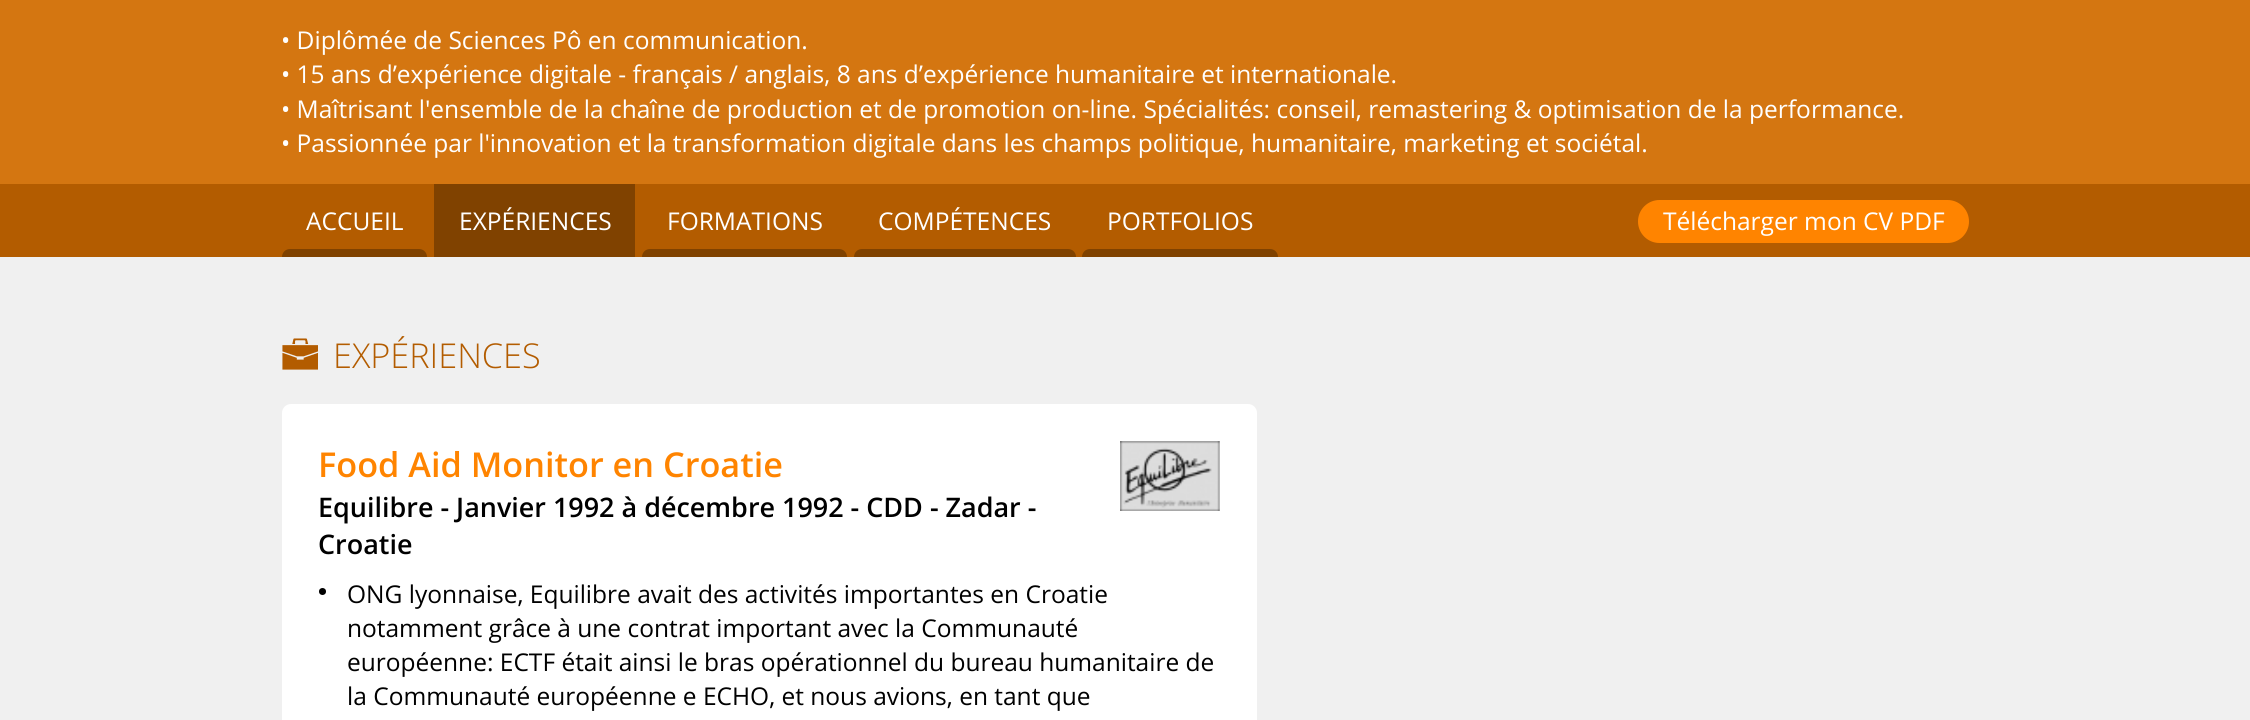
import math
import cairo



def rounded_rect(context, x, y, w, h, r):
    context.new_sub_path()
    for i, (u, v) in enumerate([(x + w - r, y + h - r), (x + r, y + h - r), (x + r, y + r), (x + w - r, y + r)]):
        context.arc(u, v, r, i * math.pi / 2, (i + 1) * math.pi / 2)
    context.close_path()


def draw_image(context, path, x, y, w, h):
    context.save()
    context.set_source_surface(cairo.ImageSurface.create_from_png(path), x, y)
    context.rectangle(x, y, w, h)
    context.fill()
    context.restore()


def draw(context):
    context.set_source_rgb(240 / 255, 240 / 255, 240 / 255)
    context.paint()
    context.set_source_rgb(212 / 255, 118 / 255, 17 / 255)
    context.rectangle(0, 0, 2250, 184)
    context.fill()
    context.set_source_rgb(179 / 255, 92 / 255, 0)
    context.rectangle(0, 184, 2250, 73)
    context.fill()
    context.set_source_rgb(128 / 255, 66 / 255, 0)
    context.new_path()
    context.move_to(290, 249)
    context.line_to(419, 249)
    context.curve_to(423.5, 249, 427, 252.5, 427, 257)
    context.line_to(282, 257)
    context.curve_to(282, 252.5, 285.5, 249, 290, 249)
    context.close_path()
    context.fill()
    context.rectangle(434, 184, 201, 73)
    context.fill()
    context.new_path()
    context.move_to(650, 249)
    context.line_to(839, 249)
    context.curve_to(843.5, 249, 847, 252.5, 847, 257)
    context.line_to(642, 257)
    context.curve_to(642, 252.5, 645.5, 249, 650, 249)
    context.close_path()
    context.fill()
    context.new_path()
    context.move_to(862, 249)
    context.line_to(1068, 249)
    context.curve_to(1072.5, 249, 1076, 252.5, 1076, 257)
    context.line_to(854, 257)
    context.curve_to(854, 252.5, 857.5, 249, 862, 249)
    context.close_path()
    context.fill()
    context.new_path()
    context.move_to(1090, 249)
    context.line_to(1270, 249)
    context.curve_to(1274.5, 249, 1278, 252.5, 1278, 257)
    context.line_to(1082, 257)
    context.curve_to(1082, 252.5, 1085.5, 249, 1090, 249)
    context.close_path()
    context.fill()
    context.set_source_rgb(1, 132 / 255, 0)
    rounded_rect(context, 1638, 200, 331, 43, 21.5)
    context.fill()
    draw_image(context, "images/1.png", 282, 338, 36, 32)
    context.set_source_rgb(1, 1, 1)
    rounded_rect(context, 282, 404, 975, 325, 9)
    context.fill()
    draw_image(context, "images/2.png", 1120, 441, 100, 70)
    context.set_source_rgb(0, 0, 0)
    context.arc(322.5, 591.5, 3.5, 0, 2 * math.pi)
    context.fill()
    context.select_font_face("Open Sans")
    context.set_font_size(24.5)
    context.set_source_rgb(1, 1, 1)
    context.move_to(281, 49)
    context.show_text("• Diplômée de Sciences Pô en communication.")
    context.move_to(281, 83)
    context.show_text("• 15 ans d’expérience digitale - français / anglais, 8 ans d’expérience humanitaire et internationale.")
    context.move_to(281, 118)
    context.show_text("• Maîtrisant l'ensemble de la chaîne de production et de promotion on-line. Spécialités: conseil, remastering & optimisation de la performance.")
    context.move_to(281, 152)
    context.show_text("• Passionnée par l'innovation et la transformation digitale dans les champs politique, humanitaire, marketing et sociétal.")
    context.move_to(306, 230)
    context.show_text("ACCUEIL")
    context.move_to(459, 230)
    context.show_text("EXPÉRIENCES")
    context.move_to(667, 230)
    context.show_text("FORMATIONS")
    context.move_to(878, 230)
    context.show_text("COMPÉTENCES")
    context.move_to(1107, 230)
    context.show_text("PORTFOLIOS")
    context.move_to(1663, 230)
    context.show_text("Télécharger mon CV PDF")
    context.select_font_face("Open Sans Light")
    context.set_font_size(34.25)
    context.set_source_rgb(179 / 255, 92 / 255, 0)
    context.move_to(333, 368)
    context.show_text("EXPÉRIENCES")
    context.select_font_face("Open Sans SemiBold")
    context.set_source_rgb(1, 132 / 255, 0)
    context.move_to(318, 477)
    context.show_text("Food Aid Monitor en Croatie")
    context.set_font_size(26.95)
    context.set_source_rgb(0, 0, 0)
    context.move_to(318, 517)
    context.show_text("Equilibre - Janvier 1992 à décembre 1992 - CDD - Zadar -")
    context.move_to(318, 554)
    context.show_text("Croatie")
    context.select_font_face("Open Sans")
    context.set_font_size(24.5)
    context.move_to(347, 603)
    context.show_text("ONG lyonnaise, Equilibre avait des activités importantes en Croatie")
    context.move_to(347, 637)
    context.show_text("notamment grâce à une contrat important avec la Communauté")
    context.move_to(347, 671)
    context.show_text("européenne: ECTF était ainsi le bras opérationnel du bureau humanitaire de")
    context.move_to(347, 705)
    context.show_text("la Communauté européenne e ECHO, et nous avions, en tant que")


surface = cairo.ImageSurface(cairo.Format.RGB24, 2250, 720)
context = cairo.Context(surface)
options = cairo.FontOptions()
options.set_hint_metrics(cairo.HintMetrics.OFF)
options.set_hint_style(cairo.HintStyle.NONE)
context.set_font_options(options)
context.set_miter_limit(4)
draw(context)
surface.write_to_png("out.png")
